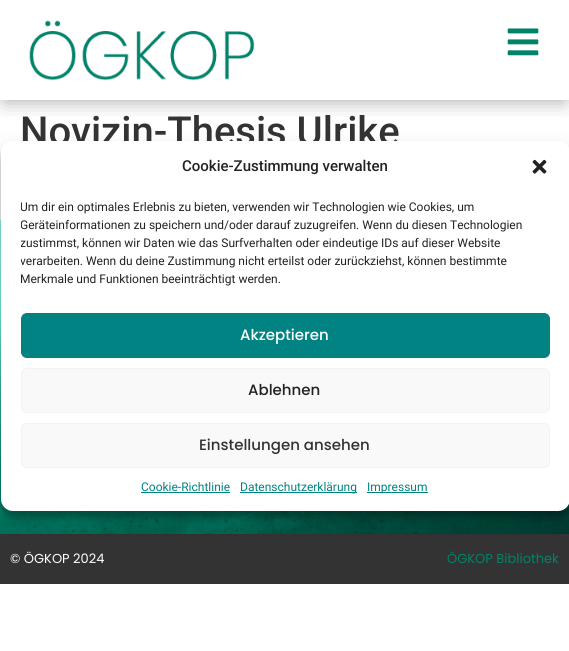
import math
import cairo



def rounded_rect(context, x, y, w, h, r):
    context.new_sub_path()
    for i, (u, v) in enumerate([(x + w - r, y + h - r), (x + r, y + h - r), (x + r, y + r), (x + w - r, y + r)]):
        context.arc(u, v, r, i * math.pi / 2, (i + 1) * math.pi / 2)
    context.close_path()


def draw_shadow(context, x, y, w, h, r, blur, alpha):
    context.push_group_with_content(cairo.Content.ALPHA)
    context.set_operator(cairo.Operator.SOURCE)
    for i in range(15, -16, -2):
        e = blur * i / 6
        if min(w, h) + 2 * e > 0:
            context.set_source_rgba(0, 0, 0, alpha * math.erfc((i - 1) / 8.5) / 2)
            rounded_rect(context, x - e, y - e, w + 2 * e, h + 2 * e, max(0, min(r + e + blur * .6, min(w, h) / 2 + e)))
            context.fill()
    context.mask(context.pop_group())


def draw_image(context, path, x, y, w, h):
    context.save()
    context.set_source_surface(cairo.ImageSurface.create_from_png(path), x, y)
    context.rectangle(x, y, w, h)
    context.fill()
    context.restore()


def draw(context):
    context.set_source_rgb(1, 1, 1)
    context.paint()
    context.save()
    context.rectangle(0, 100, 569, 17)
    context.clip()
    context.set_source_rgb(63 / 255, 63 / 255, 63 / 255)
    draw_shadow(context, 5, 10, 559, 90, 0, 10, 0.5)
    context.restore()
    draw_image(context, "images/1.png", 29, 20, 226, 61)
    draw_image(context, "images/2.png", 507, 28, 32, 28)
    draw_image(context, "images/4.png", 0, 220, 569, 314)
    context.save()
    context.set_fill_rule(cairo.FillRule.EVEN_ODD)
    context.new_path()
    context.move_to(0, 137)
    context.line_to(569, 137)
    context.line_to(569, 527)
    context.line_to(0, 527)
    context.close_path()
    context.move_to(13, 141)
    context.line_to(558, 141)
    context.curve_to(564.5, 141, 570, 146.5, 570, 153)
    context.line_to(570, 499)
    context.curve_to(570, 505.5, 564.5, 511, 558, 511)
    context.line_to(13, 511)
    context.curve_to(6.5, 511, 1, 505.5, 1, 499)
    context.line_to(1, 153)
    context.curve_to(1, 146.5, 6.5, 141, 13, 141)
    context.close_path()
    context.clip()
    context.set_source_rgb(0, 0, 0)
    draw_shadow(context, 1, 147, 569, 370, 12, 3, 0.23)
    context.restore()
    context.set_source_rgb(51 / 255, 51 / 255, 51 / 255)
    context.rectangle(0, 534, 569, 50)
    context.fill()
    context.save()
    context.set_fill_rule(cairo.FillRule.EVEN_ODD)
    context.new_path()
    context.move_to(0, 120)
    context.line_to(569, 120)
    context.line_to(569, 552)
    context.line_to(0, 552)
    context.close_path()
    context.move_to(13, 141)
    context.line_to(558, 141)
    context.curve_to(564.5, 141, 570, 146.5, 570, 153)
    context.line_to(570, 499)
    context.curve_to(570, 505.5, 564.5, 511, 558, 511)
    context.line_to(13, 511)
    context.curve_to(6.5, 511, 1, 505.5, 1, 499)
    context.line_to(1, 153)
    context.curve_to(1, 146.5, 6.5, 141, 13, 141)
    context.close_path()
    context.clip()
    context.set_source_rgb(0, 0, 0)
    draw_shadow(context, 1, 151, 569, 370, 12, 10, 0.19)
    context.restore()
    context.select_font_face("Roboto Medium")
    context.set_font_size(40)
    context.move_to(20, 145)
    context.show_text("Novizin-Thesis Ulrike")
    context.set_source_rgb(1, 1, 1)
    rounded_rect(context, 1, 141, 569, 370, 12)
    context.fill()
    context.set_font_size(15)
    context.set_source_rgb(34 / 255, 34 / 255, 34 / 255)
    context.move_to(182, 171)
    context.show_text("Cookie-Zustimmung verwalten")
    draw_image(context, "images/3.png", 532, 159, 15, 15)
    context.save()
    context.rectangle(21, 198, 529, 95)
    context.clip()
    context.select_font_face("Roboto")
    context.set_font_size(12)
    context.move_to(20, 211)
    context.show_text("Um dir ein optimales Erlebnis zu bieten, verwenden wir Technologien wie Cookies, um")
    context.move_to(20, 229)
    context.show_text("Geräteinformationen zu speichern und/oder darauf zuzugreifen. Wenn du diesen Technologien")
    context.move_to(20, 247)
    context.show_text("zustimmst, können wir Daten wie das Surfverhalten oder eindeutige IDs auf dieser Website")
    context.move_to(20, 265)
    context.show_text("verarbeiten. Wenn du deine Zustimmung nicht erteilst oder zurückziehst, können bestimmte")
    context.restore()
    context.select_font_face("Roboto")
    context.set_font_size(12)
    context.move_to(20, 283)
    context.show_text("Merkmale und Funktionen beeinträchtigt werden.")
    context.set_source_rgb(0, 131 / 255, 130 / 255)
    rounded_rect(context, 21.5, 313.5, 528, 44, 5.5)
    context.fill_preserve()
    context.set_line_width(1)
    context.stroke()
    context.select_font_face("Poppins Medium")
    context.set_font_size(15)
    context.set_source_rgb(1, 1, 1)
    context.move_to(240, 340)
    context.show_text("Akzeptieren")
    context.set_source_rgb(249 / 255, 249 / 255, 249 / 255)
    rounded_rect(context, 21.5, 368.5, 528, 44, 5.5)
    context.fill_preserve()
    context.set_source_rgb(242 / 255, 242 / 255, 242 / 255)
    context.stroke()
    context.set_source_rgb(34 / 255, 34 / 255, 34 / 255)
    context.move_to(248, 395)
    context.show_text("Ablehnen")
    context.set_source_rgb(249 / 255, 249 / 255, 249 / 255)
    rounded_rect(context, 21.5, 423.5, 528, 44, 5.5)
    context.fill_preserve()
    context.set_source_rgb(242 / 255, 242 / 255, 242 / 255)
    context.stroke()
    context.set_source_rgb(51 / 255, 51 / 255, 51 / 255)
    context.move_to(199, 450)
    context.show_text("Einstellungen ansehen")
    context.select_font_face("Roboto")
    context.set_font_size(12)
    context.set_source_rgb(0, 131 / 255, 130 / 255)
    context.move_to(141, 491)
    context.show_text("Cookie-Richtlinie")
    context.rectangle(141, 492, 89, 1)
    context.fill()
    context.rectangle(240, 492, 117, 1)
    context.fill()
    context.move_to(240, 491)
    context.show_text("Datenschutzerklärung")
    context.rectangle(367, 492, 61, 1)
    context.fill()
    context.move_to(367, 491)
    context.show_text("Impressum")
    context.select_font_face("Poppins")
    context.set_font_size(13)
    context.set_source_rgb(1, 1, 1)
    context.move_to(10, 563)
    context.show_text("© ÖGKOP 2024")
    context.set_source_rgb(0, 131 / 255, 105 / 255)
    context.move_to(447, 563)
    context.show_text("ÖGKOP Bibliothek")


surface = cairo.ImageSurface(cairo.Format.RGB24, 569, 651)
context = cairo.Context(surface)
options = cairo.FontOptions()
options.set_hint_metrics(cairo.HintMetrics.OFF)
options.set_hint_style(cairo.HintStyle.NONE)
context.set_font_options(options)
context.set_miter_limit(4)
draw(context)
surface.write_to_png("out.png")
